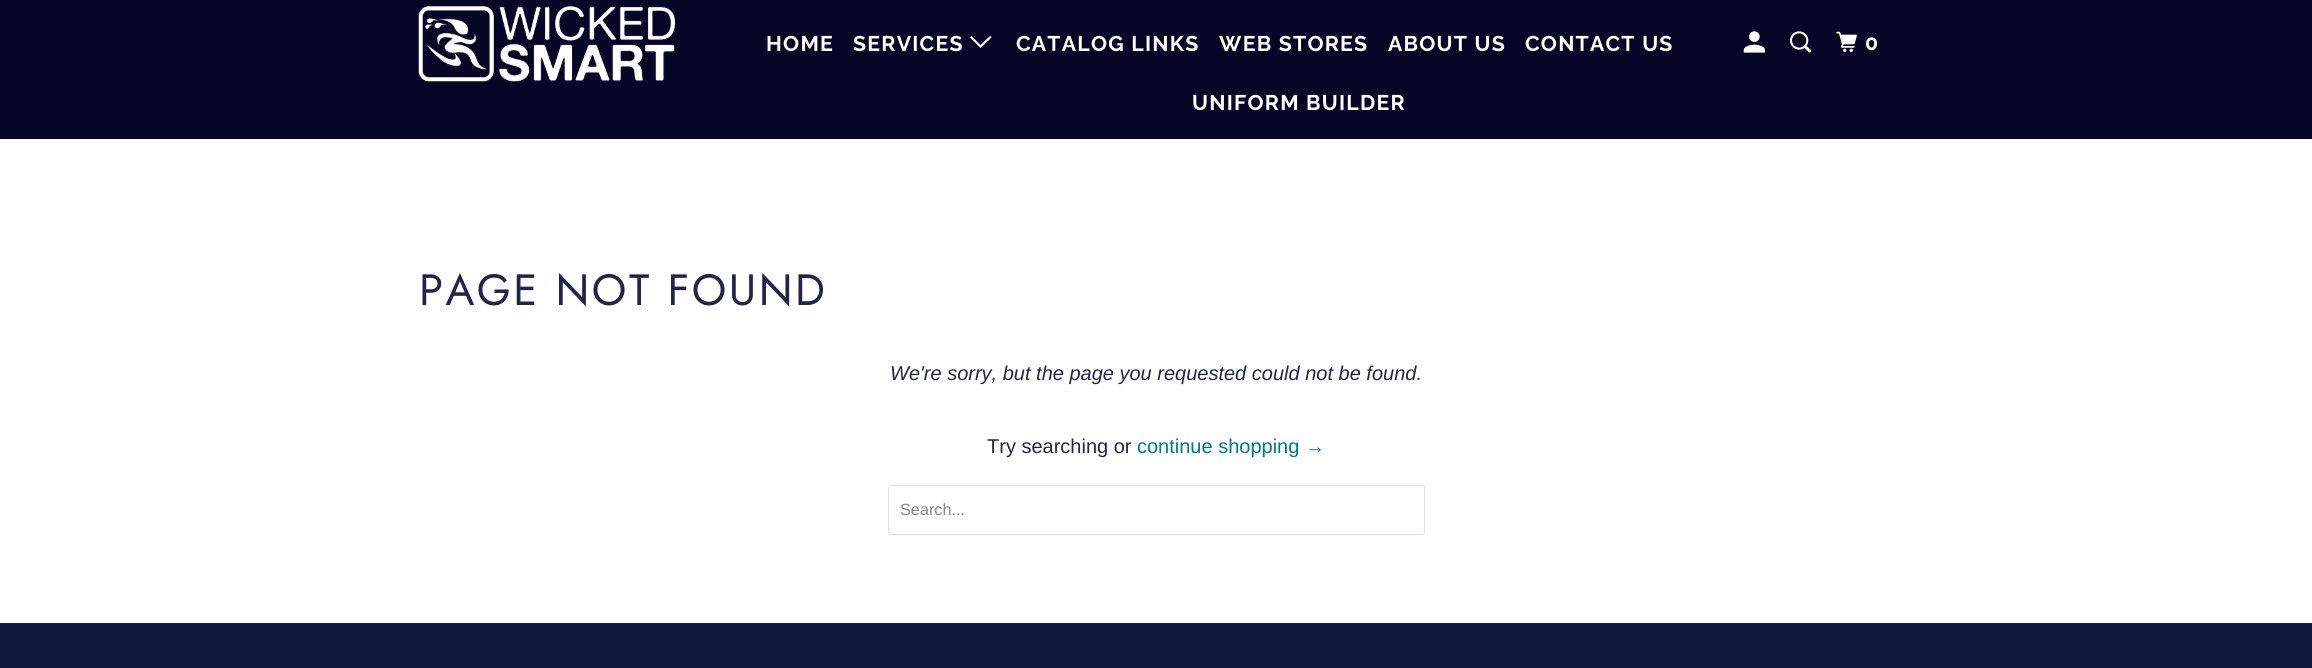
import math
import cairo



def draw_spaced(context, x, y, s, letter, word):
    context.move_to(x, y)
    for ch in s:
        context.show_text(ch)
        context.rel_move_to(letter + word * (ch == ' '), 0)


def rounded_rect(context, x, y, w, h, r):
    context.new_sub_path()
    for i, (u, v) in enumerate([(x + w - r, y + h - r), (x + r, y + h - r), (x + r, y + r), (x + w - r, y + r)]):
        context.arc(u, v, r, i * math.pi / 2, (i + 1) * math.pi / 2)
    context.close_path()


def draw_image(context, path, x, y, w, h):
    context.save()
    context.set_source_surface(cairo.ImageSurface.create_from_png(path), x, y)
    context.rectangle(x, y, w, h)
    context.fill()
    context.restore()


def draw(context):
    context.set_source_rgb(1, 1, 1)
    context.paint()
    context.set_source_rgb(5 / 255, 6 / 255, 37 / 255)
    context.rectangle(0, 0, 2312, 139)
    context.fill()
    draw_image(context, "images/1.png", 418, 6, 257, 76)
    context.set_source_rgb(1, 1, 1)
    context.new_path()
    context.move_to(975.5, 43)
    context.line_to(970, 37.5)
    context.line_to(971.5, 36)
    context.line_to(980.5, 45)
    context.line_to(990, 36)
    context.line_to(991.5, 37.5)
    context.line_to(980.5, 48)
    context.close_path()
    context.fill()
    draw_image(context, "images/2.png", 1743, 31, 22, 22)
    draw_image(context, "images/3.png", 1790, 31, 22, 22)
    draw_image(context, "images/4.png", 1836, 31, 21, 22)
    rounded_rect(context, 888.5, 485.5, 536, 49, 2)
    context.set_source_rgb(223 / 255, 223 / 255, 223 / 255)
    context.set_line_width(1)
    context.stroke()
    context.set_source_rgb(14 / 255, 24 / 255, 61 / 255)
    context.rectangle(0, 624, 2312, 44)
    context.fill()
    context.set_source_rgb(27 / 255, 31 / 255, 35 / 255)
    context.rectangle(0, 623, 2312, 1)
    context.fill()
    context.select_font_face("Raleway", cairo.FontSlant.NORMAL, cairo.FontWeight.BOLD)
    context.set_font_size(21.25)
    context.set_source_rgb(1, 1, 1)
    draw_spaced(context, 766, 51, "HOME", 1.25, 0)
    draw_spaced(context, 853, 51, "SERVICES", 1.25, 0)
    draw_spaced(context, 1016, 51, "CATALOG LINKS", 1.25, 0)
    draw_spaced(context, 1219, 51, "WEB STORES", 1.25, 0)
    draw_spaced(context, 1388, 51, "ABOUT US", 1.25, 0)
    draw_spaced(context, 1525, 51, "CONTACT US", 1.25, 0)
    draw_spaced(context, 1192, 110, "UNIFORM BUILDER", 1.25, 0)
    draw_spaced(context, 1865, 50, "0", 1.25, 0)
    context.select_font_face("Jost")
    context.set_font_size(43.75)
    context.set_source_rgb(33 / 255, 37 / 255, 72 / 255)
    draw_spaced(context, 419, 305, "PAGE NOT FOUND", 2.5, 0)
    context.select_font_face("Liberation Sans", cairo.FontSlant.ITALIC)
    context.set_font_size(20)
    context.move_to(890, 380)
    context.show_text("We're sorry, but the page you requested could not be found.")
    context.select_font_face("Liberation Sans")
    context.move_to(987, 453)
    context.show_text("Try searching or")
    context.set_source_rgb(0, 122 / 255, 135 / 255)
    context.move_to(1137, 453)
    context.show_text("continue shopping →")
    context.set_font_size(16.25)
    context.set_source_rgb(136 / 255, 136 / 255, 136 / 255)
    context.move_to(900, 515)
    context.show_text("Search...")


surface = cairo.ImageSurface(cairo.Format.RGB24, 2312, 668)
context = cairo.Context(surface)
options = cairo.FontOptions()
options.set_hint_metrics(cairo.HintMetrics.OFF)
options.set_hint_style(cairo.HintStyle.NONE)
context.set_font_options(options)
context.set_miter_limit(4)
draw(context)
surface.write_to_png("out.png")
